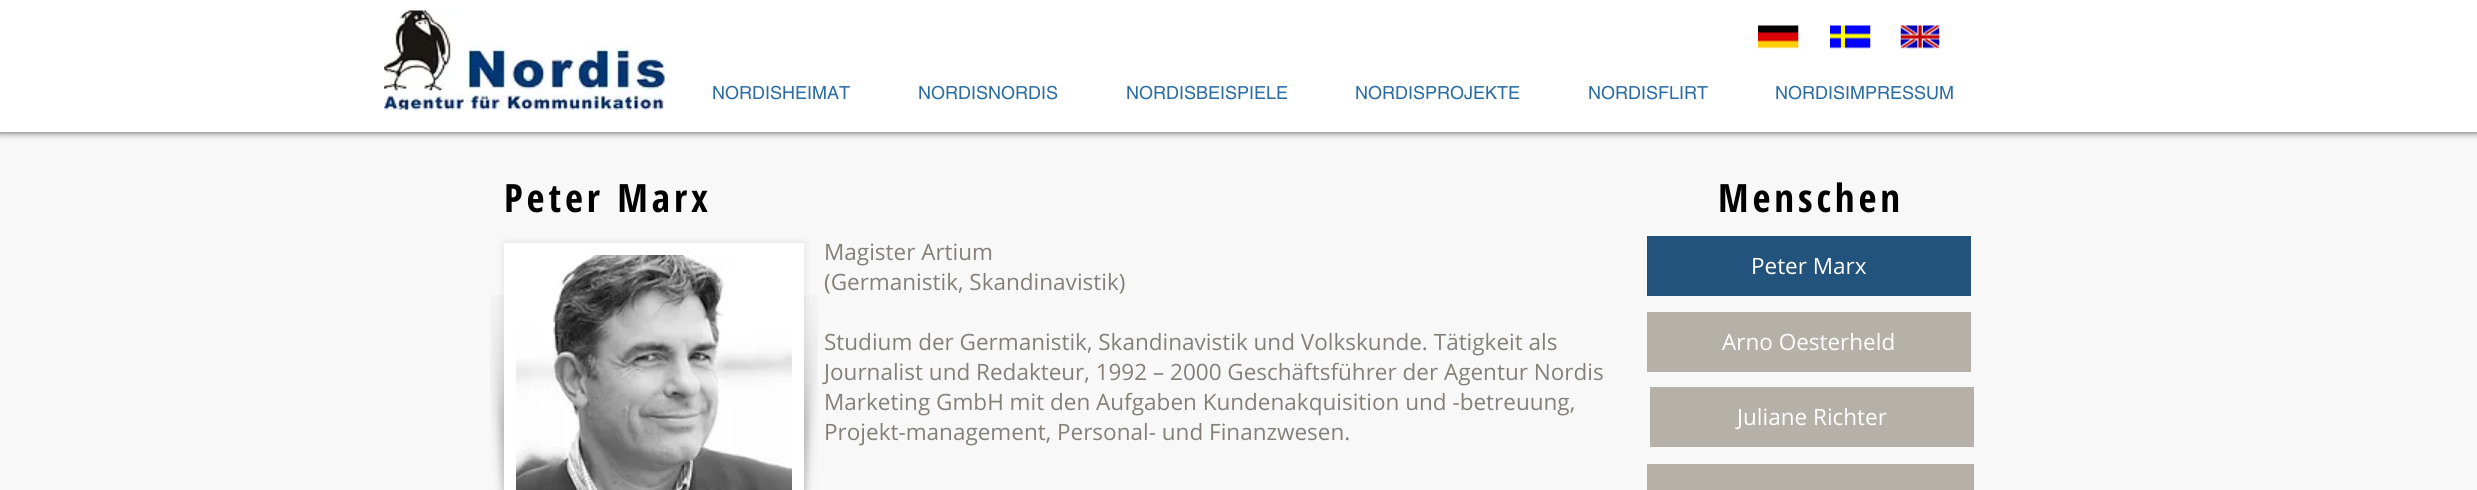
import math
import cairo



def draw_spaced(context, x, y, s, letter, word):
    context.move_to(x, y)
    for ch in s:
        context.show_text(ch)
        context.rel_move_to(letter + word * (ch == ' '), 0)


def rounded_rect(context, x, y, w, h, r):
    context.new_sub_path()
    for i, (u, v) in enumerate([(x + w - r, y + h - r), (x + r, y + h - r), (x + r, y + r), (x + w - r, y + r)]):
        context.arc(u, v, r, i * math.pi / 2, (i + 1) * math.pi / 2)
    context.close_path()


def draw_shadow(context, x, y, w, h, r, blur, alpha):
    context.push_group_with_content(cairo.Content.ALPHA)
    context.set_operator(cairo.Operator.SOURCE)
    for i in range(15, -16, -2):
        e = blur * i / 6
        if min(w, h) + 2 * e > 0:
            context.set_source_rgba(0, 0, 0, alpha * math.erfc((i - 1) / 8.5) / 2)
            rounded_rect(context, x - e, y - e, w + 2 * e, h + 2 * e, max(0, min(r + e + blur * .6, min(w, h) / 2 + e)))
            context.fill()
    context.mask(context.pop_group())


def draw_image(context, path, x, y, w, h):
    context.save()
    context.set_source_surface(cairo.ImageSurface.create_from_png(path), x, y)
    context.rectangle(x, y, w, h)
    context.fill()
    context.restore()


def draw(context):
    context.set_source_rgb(248 / 255, 248 / 255, 248 / 255)
    context.paint()
    context.set_source_rgb(0, 0, 0)
    draw_shadow(context, 0, 0, 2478, 132, 0, 4, 0.7)
    context.set_source_rgb(1, 1, 1)
    context.rectangle(0, 0, 2477, 132)
    context.fill()
    draw_image(context, "images/1.png", 384, 10, 281, 100)
    draw_image(context, "images/2.png", 1758, 25, 41, 24)
    draw_image(context, "images/3.png", 1830, 25, 41, 24)
    draw_image(context, "images/4.png", 1900, 25, 40, 24)
    context.set_source_rgb(0, 0, 0)
    draw_shadow(context, 504, 243, 300, 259, 0, 4, 0.1)
    context.set_source_rgb(1, 1, 1)
    context.rectangle(504, 243, 300, 247)
    context.fill()
    draw_image(context, "images/5.png", 516, 255, 276, 235)
    draw_image(context, "images/6.png", 490, 295, 14, 195)
    draw_image(context, "images/7.png", 804, 295, 14, 195)
    context.set_source_rgb(34 / 255, 83 / 255, 125 / 255)
    context.rectangle(1647, 236, 324, 60)
    context.fill()
    context.set_source_rgb(181 / 255, 177 / 255, 169 / 255)
    context.rectangle(1647, 312, 324, 60)
    context.fill()
    context.rectangle(1650, 387, 324, 60)
    context.fill()
    context.rectangle(1647, 464, 327, 26)
    context.fill()
    context.select_font_face("helvetica")
    context.set_font_size(18)
    context.set_source_rgb(43 / 255, 108 / 255, 163 / 255)
    context.move_to(712, 99)
    context.show_text("NORDISHEIMAT")
    context.move_to(918, 99)
    context.show_text("NORDISNORDIS")
    context.move_to(1126, 99)
    context.show_text("NORDISBEISPIELE")
    context.move_to(1355, 99)
    context.show_text("NORDISPROJEKTE")
    context.move_to(1588, 99)
    context.show_text("NORDISFLIRT")
    context.move_to(1775, 99)
    context.show_text("NORDISIMPRESSUM")
    context.select_font_face("Open Sans Condensed", cairo.FontSlant.NORMAL, cairo.FontWeight.BOLD)
    context.set_font_size(39)
    context.set_source_rgb(0, 0, 0)
    draw_spaced(context, 504, 212, "Peter Marx", 3.9, 0)
    draw_spaced(context, 1718, 212, "Menschen", 3.9, 0)
    context.select_font_face("Open Sans")
    context.set_font_size(22.5)
    context.set_source_rgb(132 / 255, 128 / 255, 121 / 255)
    context.move_to(824, 260)
    context.show_text("Magister Artium")
    context.move_to(824, 290)
    context.show_text("(Germanistik, Skandinavistik)")
    context.move_to(824, 350)
    context.show_text("Studium der Germanistik, Skandinavistik und Volkskunde. Tätigkeit als")
    context.move_to(824, 380)
    context.show_text("Journalist und Redakteur, 1992 – 2000 Geschäftsführer der Agentur Nordis")
    context.move_to(824, 410)
    context.show_text("Marketing GmbH mit den Aufgaben Kundenakquisition und -betreuung,")
    context.move_to(824, 440)
    context.show_text("Projekt-management, Personal- und Finanzwesen.")
    context.set_source_rgb(1, 1, 1)
    context.move_to(1751, 274)
    context.show_text("Peter Marx")
    context.move_to(1722, 350)
    context.show_text("Arno Oesterheld")
    context.move_to(1737, 425)
    context.show_text("Juliane Richter")


surface = cairo.ImageSurface(cairo.Format.RGB24, 2477, 490)
context = cairo.Context(surface)
options = cairo.FontOptions()
options.set_hint_metrics(cairo.HintMetrics.OFF)
options.set_hint_style(cairo.HintStyle.NONE)
context.set_font_options(options)
context.set_miter_limit(4)
draw(context)
surface.write_to_png("out.png")
